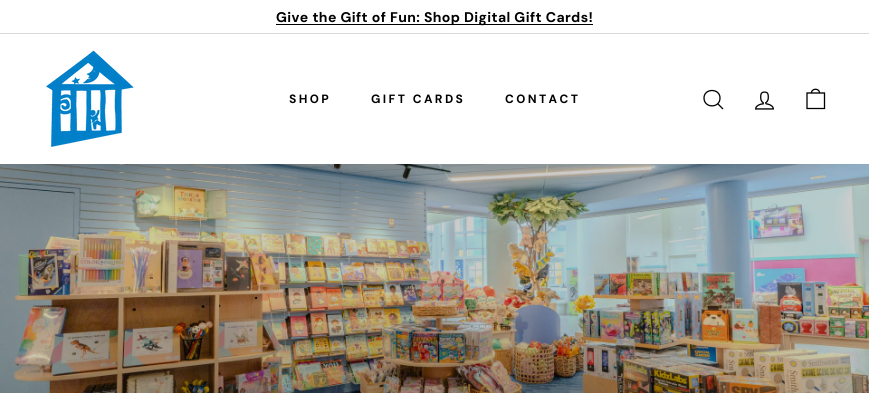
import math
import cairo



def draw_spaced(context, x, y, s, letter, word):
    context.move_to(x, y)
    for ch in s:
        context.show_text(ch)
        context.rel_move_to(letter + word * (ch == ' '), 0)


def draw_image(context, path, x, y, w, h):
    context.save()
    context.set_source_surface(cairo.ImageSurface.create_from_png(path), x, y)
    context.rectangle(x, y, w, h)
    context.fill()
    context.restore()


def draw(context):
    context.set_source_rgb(1, 1, 1)
    context.paint()
    context.set_source_rgb(0, 0, 0)
    context.rectangle(276, 24, 317, 1)
    context.fill()
    context.set_source_rgb(217 / 255, 217 / 255, 217 / 255)
    context.rectangle(0, 33, 869, 1)
    context.fill()
    draw_image(context, "images/1.png", 46, 50, 88, 97)
    context.new_path()
    context.move_to(720, 98)
    context.curve_to(720, 108.5, 704, 108.5, 704, 98)
    context.curve_to(704, 88, 720, 88, 720, 98)
    context.move_to(723, 109)
    context.line_to(717.5, 103.5)
    context.set_source_rgb(0, 0, 0)
    context.set_line_width(1.3)
    context.stroke()
    draw_image(context, "images/2.png", 755, 91, 19, 19)
    context.new_path()
    context.move_to(811.5, 93)
    context.curve_to(811.5, 88, 819.5, 88, 819.5, 93)
    context.move_to(807, 93)
    context.line_to(824.5, 93)
    context.line_to(824.5, 108.5)
    context.line_to(807, 108.5)
    context.close_path()
    context.stroke()
    draw_image(context, "images/3.png", 0, 164, 869, 229)
    context.select_font_face("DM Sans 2", cairo.FontSlant.NORMAL, cairo.FontWeight.BOLD)
    context.set_font_size(14)
    draw_spaced(context, 276, 22, "Give the Gift of Fun: Shop Digital Gift Cards!", 0.4, 0)
    context.select_font_face("DM Sans", cairo.FontSlant.NORMAL, cairo.FontWeight.BOLD)
    context.set_font_size(12)
    draw_spaced(context, 289, 103, "SHOP", 2.4, 0)
    draw_spaced(context, 371, 103, "GIFT CARDS", 2.4, 0)
    draw_spaced(context, 505, 103, "CONTACT", 2.4, 0)


surface = cairo.ImageSurface(cairo.Format.RGB24, 869, 393)
context = cairo.Context(surface)
options = cairo.FontOptions()
options.set_hint_metrics(cairo.HintMetrics.OFF)
options.set_hint_style(cairo.HintStyle.NONE)
context.set_font_options(options)
context.set_miter_limit(4)
draw(context)
surface.write_to_png("out.png")
